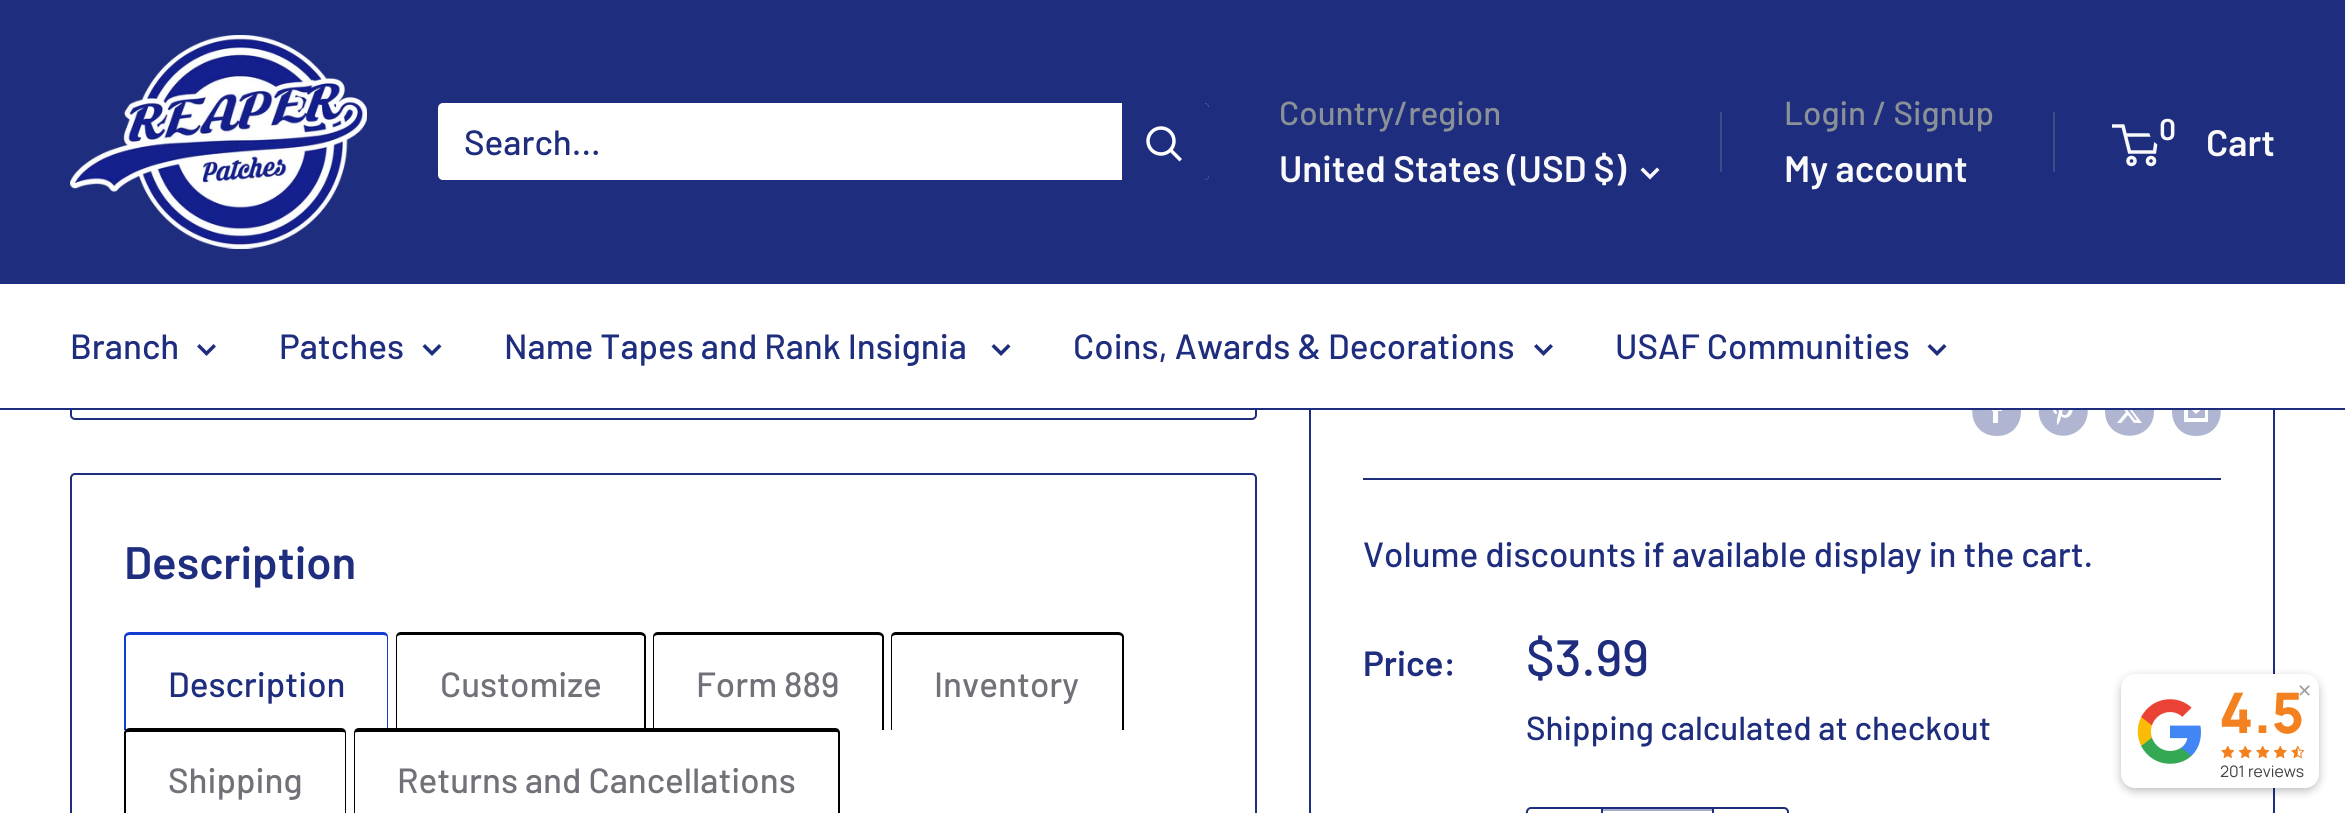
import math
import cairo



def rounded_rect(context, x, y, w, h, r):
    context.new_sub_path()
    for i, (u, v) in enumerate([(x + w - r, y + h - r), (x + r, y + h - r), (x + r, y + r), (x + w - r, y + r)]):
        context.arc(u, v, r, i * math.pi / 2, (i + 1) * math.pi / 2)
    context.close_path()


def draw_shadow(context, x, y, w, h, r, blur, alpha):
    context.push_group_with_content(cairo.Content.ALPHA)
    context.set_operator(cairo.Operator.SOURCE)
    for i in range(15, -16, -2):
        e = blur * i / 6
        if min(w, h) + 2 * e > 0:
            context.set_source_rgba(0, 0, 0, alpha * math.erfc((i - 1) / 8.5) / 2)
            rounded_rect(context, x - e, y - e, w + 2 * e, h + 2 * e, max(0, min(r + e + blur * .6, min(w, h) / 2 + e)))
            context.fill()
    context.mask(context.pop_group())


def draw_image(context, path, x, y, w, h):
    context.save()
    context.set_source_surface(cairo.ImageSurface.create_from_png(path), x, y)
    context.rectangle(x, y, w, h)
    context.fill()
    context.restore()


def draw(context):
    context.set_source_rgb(1, 1, 1)
    context.paint()
    rounded_rect(context, 71, 152, 1185, 267, 4)
    context.set_source_rgb(30 / 255, 45 / 255, 125 / 255)
    context.stroke()
    context.rectangle(1310, 152, 964, 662)
    context.stroke()
    context.rectangle(0, 0, 2345, 284)
    context.fill()
    draw_image(context, "images/1.png", 70, 35, 297, 214)
    context.set_source_rgb(1, 1, 1)
    rounded_rect(context, 438, 103, 771, 77, 5)
    context.fill()
    context.set_source_rgb(30 / 255, 45 / 255, 125 / 255)
    context.new_path()
    context.move_to(1122, 103)
    context.line_to(1204, 103)
    context.curve_to(1207, 103, 1209, 105, 1209, 108)
    context.line_to(1209, 175)
    context.curve_to(1209, 178, 1207, 180, 1204, 180)
    context.line_to(1122, 180)
    context.close_path()
    context.fill()
    context.new_path()
    context.move_to(1179.5, 159)
    context.line_to(1171, 150.5)
    context.set_source_rgb(1, 1, 1)
    context.set_line_width(3.5)
    context.set_line_cap(cairo.LineCap.SQUARE)
    context.stroke()
    context.arc(1161, 141, 13, 0, 2 * math.pi)
    context.set_line_cap(cairo.LineCap.BUTT)
    context.stroke()
    context.new_path()
    context.move_to(1657, 170)
    context.line_to(1650, 177)
    context.line_to(1643, 170)
    context.set_source_rgb(250 / 255, 250 / 255, 250 / 255)
    context.set_line_cap(cairo.LineCap.SQUARE)
    context.stroke()
    context.set_source_rgb(62 / 255, 75 / 255, 133 / 255)
    context.rectangle(1720, 112, 2, 60)
    context.fill()
    context.rectangle(2053, 112, 2, 60)
    context.fill()
    context.arc(2131.5, 161, 3.5, 0, 2 * math.pi)
    context.set_source_rgb(250 / 255, 250 / 255, 250 / 255)
    context.set_line_cap(cairo.LineCap.BUTT)
    context.stroke()
    context.arc(2151, 161, 3.5, 0, 2 * math.pi)
    context.stroke()
    context.new_path()
    context.move_to(2125, 135)
    context.line_to(2157, 135)
    context.line_to(2154.5, 152)
    context.line_to(2129.5, 152)
    context.line_to(2123, 126)
    context.line_to(2112, 126)
    context.stroke()
    context.set_source_rgb(30 / 255, 45 / 255, 125 / 255)
    context.arc(2166.5, 129.5, 17.5, 0, 2 * math.pi)
    context.fill()
    context.set_source_rgb(176 / 255, 182 / 255, 210 / 255)
    context.set_fill_rule(cairo.FillRule.EVEN_ODD)
    context.new_path()
    context.move_to(1997, 436)
    context.curve_to(1964, 436, 1964, 387, 1997, 387)
    context.curve_to(2029, 387, 2029, 436, 1997, 436)
    context.close_path()
    context.move_to(2002, 408)
    context.line_to(1998, 408)
    context.curve_to(1998, 404, 1998, 403, 2002, 403)
    context.line_to(2002, 399)
    context.curve_to(1994, 399, 1993, 400, 1993, 408)
    context.line_to(1991, 408)
    context.line_to(1992, 411)
    context.line_to(1993, 411)
    context.line_to(1993, 423)
    context.line_to(1998, 423)
    context.line_to(1998, 411)
    context.line_to(2002, 411)
    context.close_path()
    context.fill()
    context.new_path()
    context.move_to(2154, 411)
    context.curve_to(2154, 444, 2105, 444, 2105, 411)
    context.curve_to(2105, 379, 2154, 379, 2154, 411)
    context.close_path()
    context.move_to(2140, 400)
    context.line_to(2137, 400)
    context.line_to(2130, 407)
    context.line_to(2125, 400)
    context.line_to(2117, 400)
    context.line_to(2126, 412)
    context.line_to(2117, 423)
    context.line_to(2121, 423)
    context.line_to(2128, 415)
    context.line_to(2134, 423)
    context.line_to(2142, 423)
    context.line_to(2132, 410)
    context.close_path()
    context.move_to(2137, 420)
    context.line_to(2135, 420)
    context.line_to(2121, 402)
    context.line_to(2124, 402)
    context.close_path()
    context.fill()
    context.set_fill_rule(cairo.FillRule.WINDING)
    context.new_path()
    context.move_to(2196, 436)
    context.curve_to(2164, 436, 2164, 387, 2196, 387)
    context.curve_to(2229, 387, 2229, 436, 2196, 436)
    context.close_path()
    context.move_to(2191, 404)
    context.line_to(2202, 404)
    context.line_to(2196, 409)
    context.close_path()
    context.move_to(2205, 406)
    context.line_to(2205, 418)
    context.line_to(2188, 418)
    context.line_to(2188, 406)
    context.line_to(2196, 414)
    context.close_path()
    context.move_to(2208, 401)
    context.line_to(2184, 401)
    context.line_to(2184, 422)
    context.line_to(2208, 422)
    context.close_path()
    context.fill()
    context.set_source_rgb(1, 1, 1)
    context.rectangle(70, 284, 2205, 124)
    context.fill()
    context.set_source_rgb(30 / 255, 45 / 255, 125 / 255)
    context.rectangle(0, 408, 2345, 2)
    context.fill()
    context.new_path()
    context.move_to(213.5, 346.5)
    context.line_to(206.5, 353.5)
    context.line_to(199.5, 346.5)
    context.set_line_cap(cairo.LineCap.SQUARE)
    context.stroke()
    context.new_path()
    context.move_to(439, 346.5)
    context.line_to(432, 353.5)
    context.line_to(425, 346.5)
    context.stroke()
    context.new_path()
    context.move_to(1008, 346.5)
    context.line_to(1001, 353.5)
    context.line_to(994, 346.5)
    context.stroke()
    context.new_path()
    context.move_to(1550.5, 346.5)
    context.line_to(1543.5, 353.5)
    context.line_to(1536.5, 346.5)
    context.stroke()
    context.new_path()
    context.move_to(1944, 346.5)
    context.line_to(1937, 353.5)
    context.line_to(1930, 346.5)
    context.stroke()
    rounded_rect(context, 71, 474, 1185, 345, 4)
    context.set_line_width(2)
    context.set_line_cap(cairo.LineCap.BUTT)
    context.stroke()
    context.set_source_rgb(19 / 255, 60 / 255, 208 / 255)
    context.set_fill_rule(cairo.FillRule.EVEN_ODD)
    context.new_path()
    context.move_to(130, 632)
    context.line_to(383, 632)
    context.curve_to(386, 632, 388, 634, 388, 637)
    context.line_to(388, 730)
    context.line_to(124, 730)
    context.line_to(124, 637)
    context.curve_to(124, 634, 127, 632, 130, 632)
    context.close_path()
    context.move_to(130, 635)
    context.line_to(383, 635)
    context.curve_to(385, 635, 387, 636, 387, 637)
    context.line_to(387, 730)
    context.line_to(126, 730)
    context.line_to(126, 637)
    context.curve_to(126, 636, 128, 635, 130, 635)
    context.close_path()
    context.fill()
    context.set_source_rgb(0, 0, 0)
    context.new_path()
    context.move_to(401, 632)
    context.line_to(640, 632)
    context.curve_to(643, 632, 646, 634, 646, 637)
    context.line_to(646, 730)
    context.line_to(396, 730)
    context.line_to(396, 637)
    context.curve_to(396, 634, 398, 632, 401, 632)
    context.close_path()
    context.move_to(401, 635)
    context.line_to(640, 635)
    context.curve_to(642, 635, 644, 636, 644, 637)
    context.line_to(644, 730)
    context.line_to(397, 730)
    context.line_to(397, 637)
    context.curve_to(397, 636, 399, 635, 401, 635)
    context.close_path()
    context.fill()
    context.new_path()
    context.move_to(658, 632)
    context.line_to(878, 632)
    context.curve_to(881, 632, 884, 634, 884, 637)
    context.line_to(884, 730)
    context.line_to(653, 730)
    context.line_to(653, 637)
    context.curve_to(653, 634, 655, 632, 658, 632)
    context.close_path()
    context.move_to(658, 635)
    context.line_to(878, 635)
    context.curve_to(880, 635, 882, 636, 882, 637)
    context.line_to(882, 730)
    context.line_to(654, 730)
    context.line_to(654, 637)
    context.curve_to(654, 636, 656, 635, 658, 635)
    context.close_path()
    context.fill()
    context.new_path()
    context.move_to(896, 632)
    context.line_to(1118, 632)
    context.curve_to(1121, 632, 1124, 634, 1124, 637)
    context.line_to(1124, 730)
    context.line_to(891, 730)
    context.line_to(891, 637)
    context.curve_to(891, 634, 893, 632, 896, 632)
    context.close_path()
    context.move_to(896, 635)
    context.line_to(1118, 635)
    context.curve_to(1120, 635, 1122, 636, 1122, 637)
    context.line_to(1122, 730)
    context.line_to(892, 730)
    context.line_to(892, 637)
    context.curve_to(892, 636, 894, 635, 896, 635)
    context.close_path()
    context.fill()
    context.new_path()
    context.move_to(130, 728)
    context.line_to(341, 728)
    context.curve_to(344, 728, 346, 730, 346, 733)
    context.line_to(346, 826)
    context.line_to(124, 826)
    context.line_to(124, 733)
    context.curve_to(124, 730, 127, 728, 130, 728)
    context.close_path()
    context.move_to(130, 732)
    context.line_to(341, 732)
    context.curve_to(343, 732, 345, 732, 345, 733)
    context.line_to(345, 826)
    context.line_to(126, 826)
    context.line_to(126, 733)
    context.curve_to(126, 732, 128, 732, 130, 732)
    context.close_path()
    context.fill()
    context.new_path()
    context.move_to(359, 728)
    context.line_to(835, 728)
    context.curve_to(838, 728, 840, 730, 840, 733)
    context.line_to(840, 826)
    context.line_to(354, 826)
    context.line_to(354, 733)
    context.curve_to(354, 730, 356, 728, 359, 728)
    context.close_path()
    context.move_to(359, 732)
    context.line_to(835, 732)
    context.curve_to(837, 732, 838, 732, 838, 733)
    context.line_to(838, 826)
    context.line_to(355, 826)
    context.line_to(355, 733)
    context.curve_to(355, 732, 357, 732, 359, 732)
    context.close_path()
    context.fill()
    draw_image(context, "images/2.png", 2038, 410, 50, 26)
    context.set_source_rgb(30 / 255, 45 / 255, 125 / 255)
    context.rectangle(1363, 478, 858, 2)
    context.fill()
    context.save()
    context.new_path()
    context.move_to(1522, 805)
    context.line_to(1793, 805)
    context.line_to(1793, 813)
    context.line_to(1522, 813)
    context.close_path()
    context.move_to(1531, 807)
    context.line_to(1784, 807)
    context.curve_to(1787, 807, 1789, 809, 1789, 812)
    context.line_to(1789, 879)
    context.curve_to(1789, 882, 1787, 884, 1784, 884)
    context.line_to(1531, 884)
    context.curve_to(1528, 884, 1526, 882, 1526, 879)
    context.line_to(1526, 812)
    context.curve_to(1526, 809, 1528, 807, 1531, 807)
    context.close_path()
    context.clip()
    context.set_source_rgb(30 / 255, 45 / 255, 125 / 255)
    draw_shadow(context, 1526, 809, 263, 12, 5, 1, 0.2)
    context.restore()
    rounded_rect(context, 1527, 808, 261, 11, 4)
    context.stroke()
    context.set_source_rgb(165 / 255, 171 / 255, 203 / 255)
    context.rectangle(1603, 809, 109, 2)
    context.fill()
    context.set_source_rgb(30 / 255, 45 / 255, 125 / 255)
    context.rectangle(1712, 809, 2, 4)
    context.fill()
    context.rectangle(1601, 809, 2, 4)
    context.fill()
    context.set_source_rgb(0, 0, 0)
    draw_shadow(context, 2121, 677, 198, 114, 14, 4.5, 0.26)
    context.set_source_rgb(1, 1, 1)
    rounded_rect(context, 2121, 674, 198, 114, 14)
    context.fill()
    draw_image(context, "images/3.png", 2137, 699, 64, 65)
    draw_image(context, "images/4.png", 2221, 746, 14, 13)
    draw_image(context, "images/5.png", 2238, 746, 14, 13)
    draw_image(context, "images/4.png", 2256, 746, 14, 13)
    draw_image(context, "images/5.png", 2273, 746, 14, 13)
    draw_image(context, "images/6.png", 2291, 746, 14, 13)
    context.select_font_face("Barlow Medium")
    context.set_font_size(35)
    context.set_source_rgb(30 / 255, 45 / 255, 125 / 255)
    context.move_to(464, 155)
    context.show_text("Search...")
    context.set_font_size(33.25)
    context.set_source_rgb(138 / 255, 146 / 255, 151 / 255)
    context.move_to(1279, 125)
    context.show_text("Country/region")
    context.select_font_face("Barlow SemiBold")
    context.set_font_size(36.75)
    context.set_source_rgb(250 / 255, 250 / 255, 250 / 255)
    context.move_to(1279, 182)
    context.show_text("United States (USD $)")
    context.select_font_face("Barlow Medium")
    context.set_font_size(33.25)
    context.set_source_rgb(138 / 255, 146 / 255, 151 / 255)
    context.move_to(1784, 125)
    context.show_text("Login / Signup")
    context.select_font_face("Barlow SemiBold")
    context.set_font_size(36.75)
    context.set_source_rgb(250 / 255, 250 / 255, 250 / 255)
    context.move_to(1784, 182)
    context.show_text("My account")
    context.set_font_size(30)
    context.move_to(2159, 140)
    context.show_text("0")
    context.set_font_size(36.75)
    context.move_to(2206, 156)
    context.show_text("Cart")
    context.select_font_face("Barlow Medium")
    context.set_font_size(35)
    context.set_source_rgb(30 / 255, 45 / 255, 125 / 255)
    context.move_to(70, 359)
    context.show_text("Branch")
    context.move_to(279, 359)
    context.show_text("Patches")
    context.move_to(504, 359)
    context.show_text("Name Tapes and Rank Insignia")
    context.move_to(1073, 359)
    context.show_text("Coins, Awards & Decorations")
    context.move_to(1615, 359)
    context.show_text("USAF Communities")
    context.select_font_face("Barlow SemiBold")
    context.set_font_size(45.5)
    context.move_to(124, 579)
    context.show_text("Description")
    context.select_font_face("Barlow Medium")
    context.set_font_size(35)
    context.move_to(168, 697)
    context.show_text("Description")
    context.set_source_rgb(113 / 255, 113 / 255, 122 / 255)
    context.move_to(440, 697)
    context.show_text("Customize")
    context.move_to(696, 697)
    context.show_text("Form 889")
    context.move_to(934, 697)
    context.show_text("Inventory")
    context.move_to(168, 793)
    context.show_text("Shipping")
    context.move_to(397, 793)
    context.show_text("Returns and Cancellations")
    context.set_source_rgb(30 / 255, 45 / 255, 125 / 255)
    context.move_to(1363, 567)
    context.show_text("Volume discounts if available display in the cart.")
    context.select_font_face("Barlow SemiBold")
    context.move_to(1363, 676)
    context.show_text("Price:")
    context.select_font_face("Barlow Medium")
    context.set_font_size(51)
    context.move_to(1526, 676)
    context.show_text("$3.99")
    context.set_font_size(33.25)
    context.move_to(1526, 740)
    context.show_text("Shipping calculated at checkout")
    context.select_font_face("DejaVu Sans")
    context.set_font_size(18)
    context.set_source_rgb(159 / 255, 159 / 255, 159 / 255)
    context.move_to(2297, 697)
    context.show_text("✕")
    context.select_font_face("Manrope ExtraBold")
    context.set_font_size(56)
    context.set_source_rgb(244 / 255, 129 / 255, 32 / 255)
    context.move_to(2219, 733)
    context.show_text("4.5")
    context.select_font_face("Manrope")
    context.set_font_size(15.75)
    context.set_source_rgb(64 / 255, 64 / 255, 64 / 255)
    context.move_to(2220, 777)
    context.show_text("201 reviews")


surface = cairo.ImageSurface(cairo.Format.RGB24, 2345, 813)
context = cairo.Context(surface)
options = cairo.FontOptions()
options.set_hint_metrics(cairo.HintMetrics.OFF)
options.set_hint_style(cairo.HintStyle.NONE)
context.set_font_options(options)
context.set_miter_limit(4)
draw(context)
surface.write_to_png("out.png")
